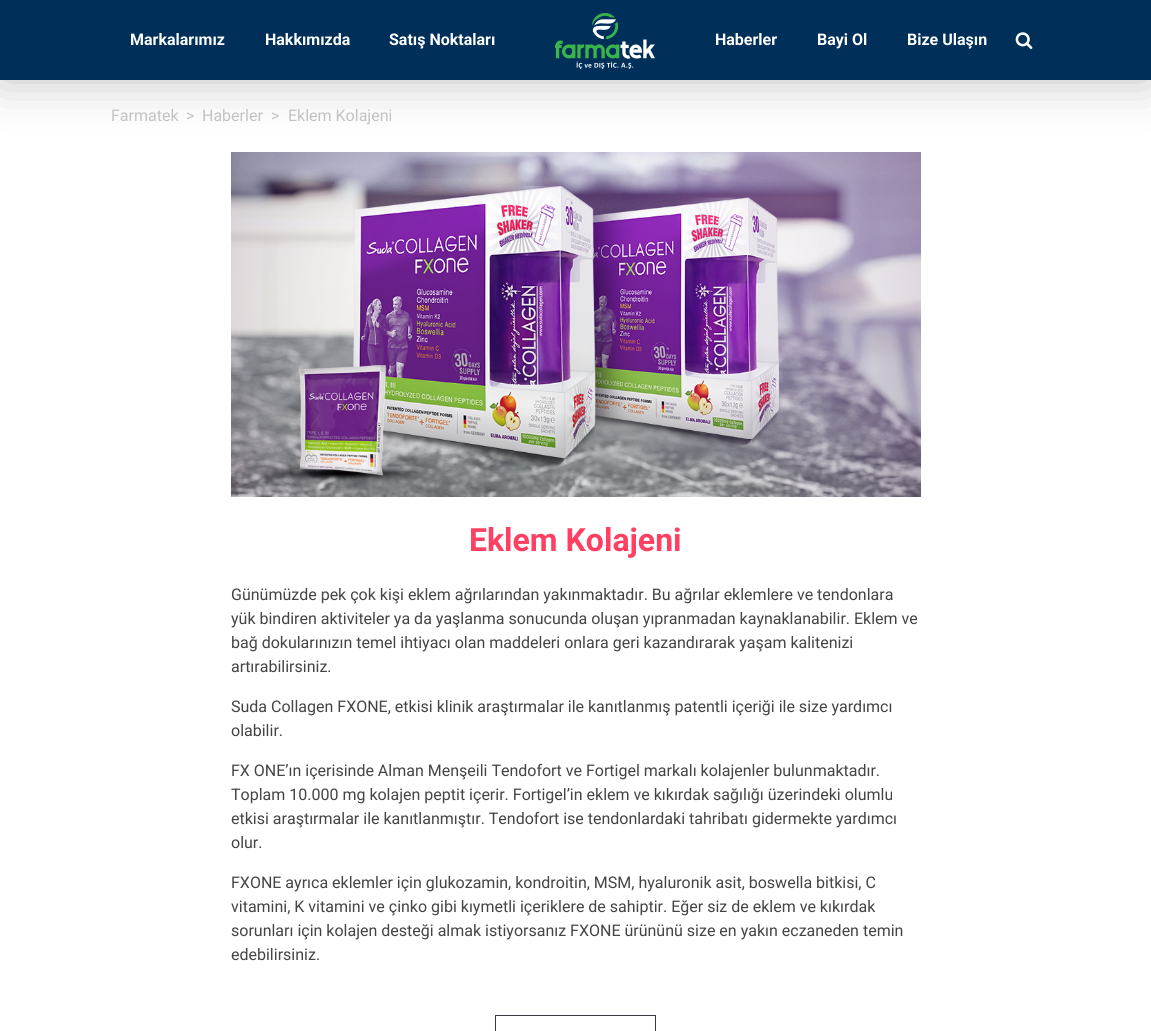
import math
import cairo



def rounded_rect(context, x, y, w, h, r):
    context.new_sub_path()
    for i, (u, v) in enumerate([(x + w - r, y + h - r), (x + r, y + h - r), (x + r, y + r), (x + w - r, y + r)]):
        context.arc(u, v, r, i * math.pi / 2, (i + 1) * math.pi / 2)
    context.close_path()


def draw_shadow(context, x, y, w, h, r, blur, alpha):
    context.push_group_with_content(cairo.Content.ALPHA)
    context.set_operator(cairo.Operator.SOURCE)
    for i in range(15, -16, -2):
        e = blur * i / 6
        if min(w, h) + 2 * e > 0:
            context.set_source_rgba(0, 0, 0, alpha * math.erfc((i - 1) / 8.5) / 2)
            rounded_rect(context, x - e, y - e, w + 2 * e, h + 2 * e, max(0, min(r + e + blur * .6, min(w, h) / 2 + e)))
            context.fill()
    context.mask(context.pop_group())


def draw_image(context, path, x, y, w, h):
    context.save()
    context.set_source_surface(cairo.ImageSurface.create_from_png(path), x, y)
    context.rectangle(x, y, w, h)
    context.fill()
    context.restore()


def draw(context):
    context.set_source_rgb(1, 1, 1)
    context.paint()
    draw_image(context, "images/3.png", 231, 152, 690, 345)
    context.set_source_rgb(0, 0, 0)
    draw_shadow(context, 0, 0, 1151, 80, 0, 25, 0.25)
    context.set_source_rgb(0, 47 / 255, 89 / 255)
    context.rectangle(0, 0, 1151, 80)
    context.fill()
    draw_image(context, "images/1.png", 555, 13, 100, 56)
    draw_image(context, "images/2.png", 1015, 32, 18, 17)
    context.rectangle(495.5, 1015.5, 160, 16)
    context.set_source_rgb(52 / 255, 58 / 255, 64 / 255)
    context.set_line_width(1)
    context.stroke()
    context.select_font_face("Roboto", cairo.FontSlant.NORMAL, cairo.FontWeight.BOLD)
    context.set_font_size(16)
    context.set_source_rgb(1, 1, 1)
    context.move_to(130, 45)
    context.show_text("Markalarımız")
    context.move_to(265, 45)
    context.show_text("Hakkımızda")
    context.move_to(389, 45)
    context.show_text("Satış Noktaları")
    context.move_to(715, 45)
    context.show_text("Haberler")
    context.move_to(817, 45)
    context.show_text("Bayi Ol")
    context.move_to(907, 45)
    context.show_text("Bize Ulaşın")
    context.select_font_face("Roboto")
    context.set_source_rgb(194 / 255, 194 / 255, 194 / 255)
    context.move_to(111, 121)
    context.show_text("Farmatek")
    context.move_to(186, 121)
    context.show_text(">")
    context.move_to(202, 121)
    context.show_text("Haberler")
    context.move_to(271, 121)
    context.show_text(">")
    context.move_to(288, 121)
    context.show_text("Eklem Kolajeni")
    context.select_font_face("Roboto", cairo.FontSlant.NORMAL, cairo.FontWeight.BOLD)
    context.set_font_size(32)
    context.set_source_rgb(1, 64 / 255, 98 / 255)
    context.move_to(469, 551)
    context.show_text("Eklem Kolajeni")
    context.select_font_face("Roboto")
    context.set_font_size(16)
    context.set_source_rgb(68 / 255, 68 / 255, 68 / 255)
    context.move_to(231, 600)
    context.show_text("Günümüzde pek çok kişi eklem ağrılarından yakınmaktadır. Bu ağrılar eklemlere ve tendonlara")
    context.move_to(231, 624)
    context.show_text("yük bindiren aktiviteler ya da yaşlanma sonucunda oluşan yıpranmadan kaynaklanabilir. Eklem ve")
    context.move_to(231, 648)
    context.show_text("bağ dokularınızın temel ihtiyacı olan maddeleri onlara geri kazandırarak yaşam kalitenizi")
    context.move_to(231, 672)
    context.show_text("artırabilirsiniz.")
    context.move_to(231, 712)
    context.show_text("Suda Collagen FXONE, etkisi klinik araştırmalar ile kanıtlanmış patentli içeriği ile size yardımcı")
    context.move_to(231, 736)
    context.show_text("olabilir.")
    context.move_to(231, 776)
    context.show_text("FX ONE’ın içerisinde Alman Menşeili Tendofort ve Fortigel markalı kolajenler bulunmaktadır.")
    context.move_to(231, 800)
    context.show_text("Toplam 10.000 mg kolajen peptit içerir. Fortigel’in eklem ve kıkırdak sağılığı üzerindeki olumlu")
    context.move_to(231, 824)
    context.show_text("etkisi araştırmalar ile kanıtlanmıştır. Tendofort ise tendonlardaki tahribatı gidermekte yardımcı")
    context.move_to(231, 848)
    context.show_text("olur.")
    context.move_to(231, 888)
    context.show_text("FXONE ayrıca eklemler için glukozamin, kondroitin, MSM, hyaluronik asit, boswella bitkisi, C")
    context.move_to(231, 912)
    context.show_text("vitamini, K vitamini ve çinko gibi kıymetli içeriklere de sahiptir. Eğer siz de eklem ve kıkırdak")
    context.move_to(231, 936)
    context.show_text("sorunları için kolajen desteği almak istiyorsanız FXONE ürününü size en yakın eczaneden temin")
    context.move_to(231, 960)
    context.show_text("edebilirsiniz.")


surface = cairo.ImageSurface(cairo.Format.RGB24, 1151, 1031)
context = cairo.Context(surface)
options = cairo.FontOptions()
options.set_hint_metrics(cairo.HintMetrics.OFF)
options.set_hint_style(cairo.HintStyle.NONE)
context.set_font_options(options)
context.set_miter_limit(4)
draw(context)
surface.write_to_png("out.png")
